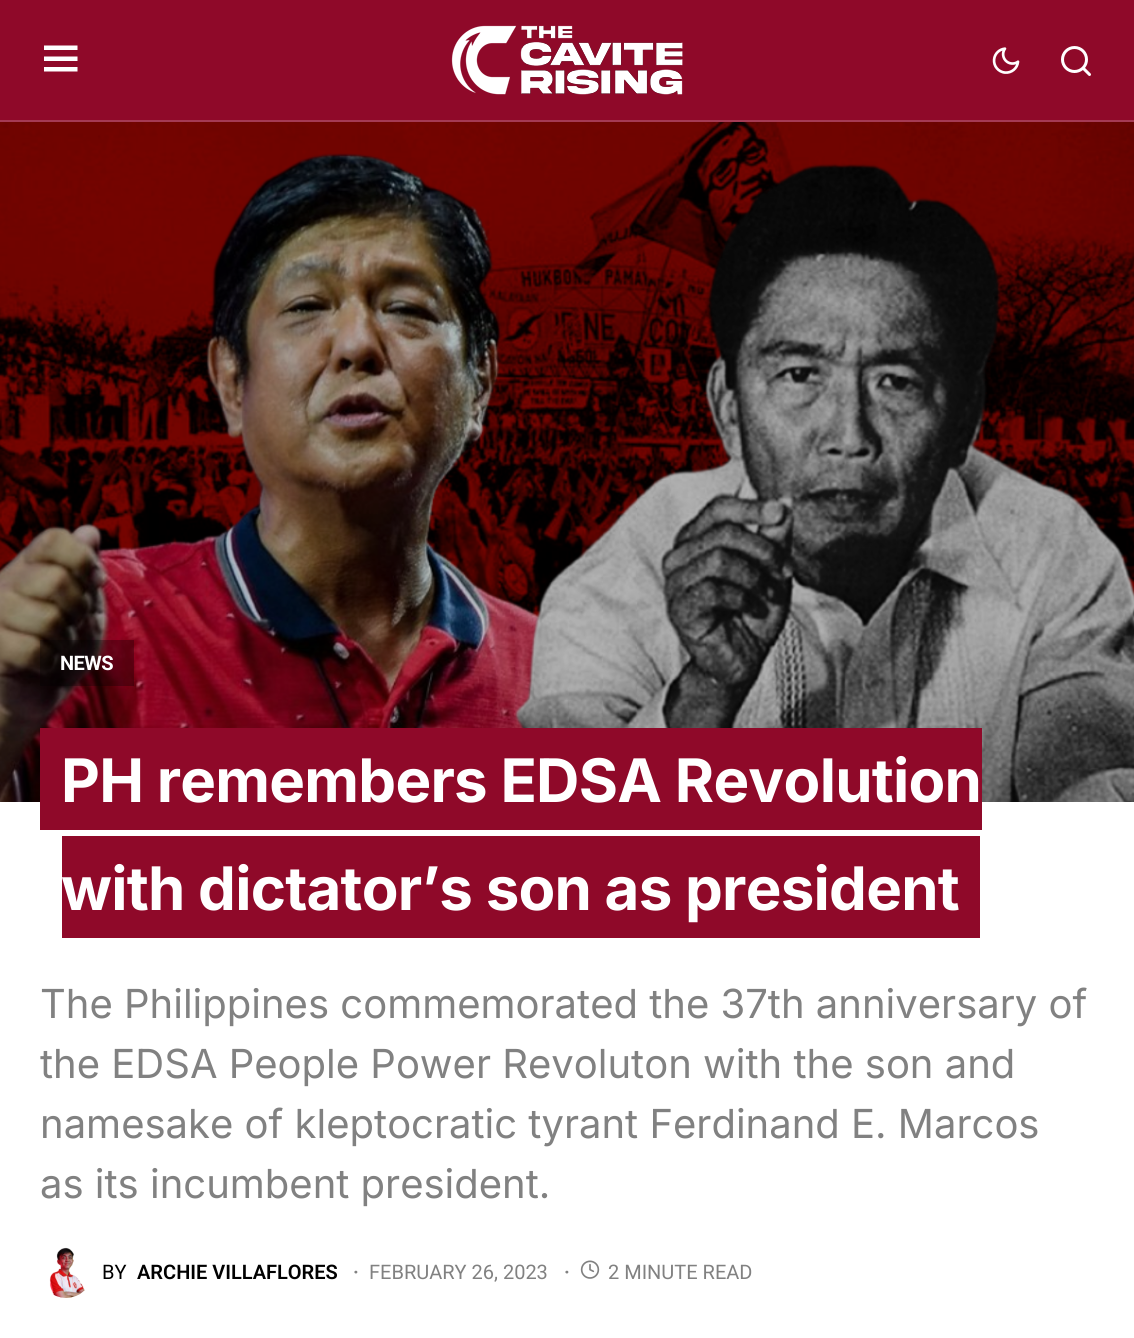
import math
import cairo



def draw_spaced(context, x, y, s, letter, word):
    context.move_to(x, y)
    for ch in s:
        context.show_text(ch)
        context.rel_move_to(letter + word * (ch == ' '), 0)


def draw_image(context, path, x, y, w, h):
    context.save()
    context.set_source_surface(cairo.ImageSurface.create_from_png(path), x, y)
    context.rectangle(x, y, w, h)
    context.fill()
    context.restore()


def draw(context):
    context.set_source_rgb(1, 1, 1)
    context.paint()
    context.set_source_rgb(143 / 255, 9 / 255, 41 / 255)
    context.rectangle(0, 0, 1134, 120)
    context.fill()
    context.set_source_rgb(165 / 255, 58 / 255, 84 / 255)
    context.rectangle(0, 120, 1134, 2)
    context.fill()
    context.set_source_rgb(1, 1, 1)
    context.new_path()
    context.move_to(44, 45.5)
    context.line_to(77.5, 45.5)
    context.line_to(77.5, 50)
    context.line_to(44, 50)
    context.close_path()
    context.move_to(44, 56.5)
    context.line_to(77.5, 56.5)
    context.line_to(77.5, 61)
    context.line_to(44, 61)
    context.close_path()
    context.move_to(44, 67)
    context.line_to(77.5, 67)
    context.line_to(77.5, 71.5)
    context.line_to(44, 71.5)
    context.close_path()
    context.fill()
    draw_image(context, "images/1.png", 451, 25, 232, 70)
    draw_image(context, "images/2.png", 992, 47, 28, 27)
    draw_image(context, "images/3.png", 1061, 46, 30, 30)
    draw_image(context, "images/4.png", 0, 122, 1134, 680)
    context.set_source_rgba(0, 0, 0, 0.3)
    context.rectangle(40, 640, 94, 46)
    context.fill()
    context.set_source_rgb(143 / 255, 9 / 255, 41 / 255)
    context.rectangle(40, 728, 942, 102)
    context.fill()
    context.rectangle(62, 836, 918, 102)
    context.fill()
    draw_image(context, "images/5.png", 49, 1247, 36, 51)
    draw_image(context, "images/6.png", 580, 1260, 20, 19)
    context.select_font_face("Roboto", cairo.FontSlant.NORMAL, cairo.FontWeight.BOLD)
    context.set_font_size(20)
    context.set_source_rgb(1, 1, 1)
    draw_spaced(context, 60, 670, "NEWS", -0.5, 0)
    context.select_font_face("Inter", cairo.FontSlant.NORMAL, cairo.FontWeight.BOLD)
    context.set_font_size(60)
    draw_spaced(context, 61, 802, "PH remembers EDSA Revolution", -0.75, 0)
    draw_spaced(context, 61, 910, "with dictator’s son as president", -0.75, 0)
    context.select_font_face("Inter")
    context.set_font_size(40)
    context.set_source_rgb(129 / 255, 129 / 255, 129 / 255)
    context.move_to(40, 1018)
    context.show_text("The Philippines commemorated the 37th anniversary of")
    context.move_to(40, 1078)
    context.show_text("the EDSA People Power Revoluton with the son and")
    context.move_to(40, 1138)
    context.show_text("namesake of kleptocratic tyrant Ferdinand E. Marcos")
    context.move_to(40, 1198)
    context.show_text("as its incumbent president.")
    context.select_font_face("Roboto")
    context.set_font_size(20)
    context.set_source_rgb(0, 0, 0)
    context.move_to(102, 1279)
    context.show_text("BY")
    context.select_font_face("Roboto SemiBold")
    context.move_to(137, 1279)
    context.show_text("ARCHIE VILLAFLORES")
    context.set_source_rgb(129 / 255, 129 / 255, 129 / 255)
    context.move_to(353, 1279)
    context.show_text("·")
    context.select_font_face("Roboto")
    context.move_to(369, 1279)
    context.show_text("FEBRUARY 26, 2023")
    context.select_font_face("Roboto SemiBold")
    context.move_to(564, 1279)
    context.show_text("·")
    context.select_font_face("Roboto")
    context.move_to(608, 1279)
    context.show_text("2 MINUTE READ")


surface = cairo.ImageSurface(cairo.Format.RGB24, 1134, 1338)
context = cairo.Context(surface)
options = cairo.FontOptions()
options.set_hint_metrics(cairo.HintMetrics.OFF)
options.set_hint_style(cairo.HintStyle.NONE)
context.set_font_options(options)
context.set_miter_limit(4)
draw(context)
surface.write_to_png("out.png")
